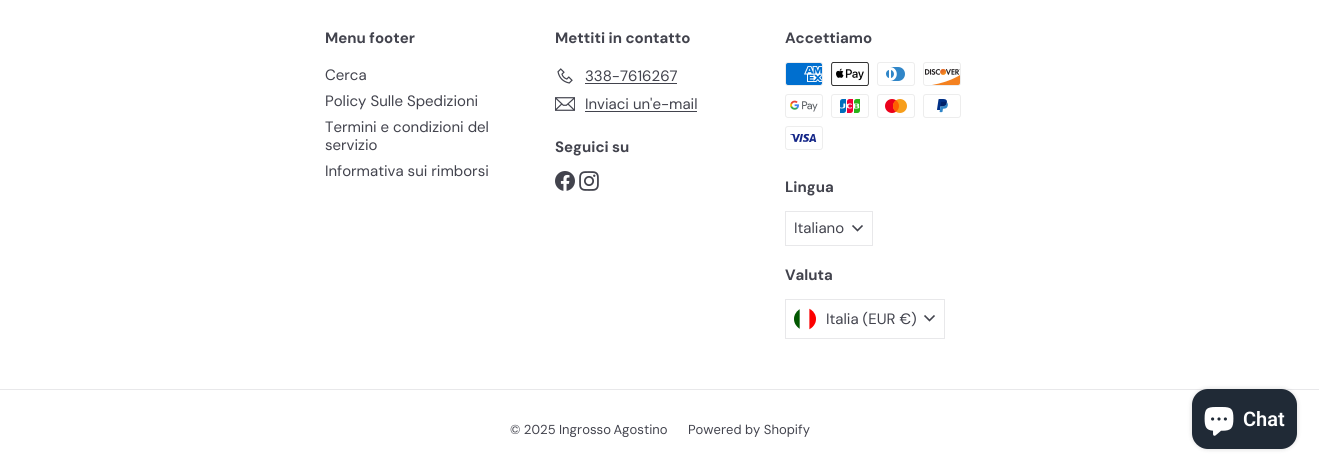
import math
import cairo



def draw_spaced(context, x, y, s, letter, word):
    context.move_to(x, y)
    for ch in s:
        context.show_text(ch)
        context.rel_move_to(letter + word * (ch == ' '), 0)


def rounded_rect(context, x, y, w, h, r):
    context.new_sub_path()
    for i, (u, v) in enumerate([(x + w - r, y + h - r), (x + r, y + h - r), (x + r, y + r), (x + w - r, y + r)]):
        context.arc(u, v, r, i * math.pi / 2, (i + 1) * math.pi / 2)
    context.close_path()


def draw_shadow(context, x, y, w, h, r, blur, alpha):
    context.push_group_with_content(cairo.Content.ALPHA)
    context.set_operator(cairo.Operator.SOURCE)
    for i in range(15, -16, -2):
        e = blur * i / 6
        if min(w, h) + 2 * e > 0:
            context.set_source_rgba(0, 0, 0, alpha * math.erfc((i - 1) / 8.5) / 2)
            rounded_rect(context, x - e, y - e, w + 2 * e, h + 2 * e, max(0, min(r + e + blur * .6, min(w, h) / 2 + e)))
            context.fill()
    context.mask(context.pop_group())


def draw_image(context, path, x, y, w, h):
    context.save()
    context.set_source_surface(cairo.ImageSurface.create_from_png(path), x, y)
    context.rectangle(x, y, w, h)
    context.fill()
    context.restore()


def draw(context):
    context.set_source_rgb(1, 1, 1)
    context.paint()
    draw_image(context, "images/1.png", 557, 68, 16, 16)
    context.set_source_rgb(66 / 255, 67 / 255, 77 / 255)
    context.rectangle(585, 83, 92, 1)
    context.fill()
    draw_image(context, "images/2.png", 555, 97, 20, 14)
    context.rectangle(585, 111, 112, 1)
    context.fill()
    draw_image(context, "images/3.png", 555, 171, 20, 20)
    draw_image(context, "images/4.png", 579, 171, 20, 20)
    draw_image(context, "images/5.png", 785, 62, 38, 24)
    draw_image(context, "images/6.png", 831, 62, 38, 24)
    draw_image(context, "images/7.png", 877, 62, 38, 24)
    draw_image(context, "images/8.png", 923, 62, 38, 24)
    draw_image(context, "images/9.png", 785, 94, 38, 24)
    draw_image(context, "images/10.png", 831, 94, 38, 24)
    draw_image(context, "images/11.png", 877, 94, 38, 24)
    draw_image(context, "images/12.png", 923, 94, 38, 24)
    draw_image(context, "images/13.png", 785, 126, 38, 24)
    context.rectangle(785.5, 211.5, 87, 34)
    context.set_source_rgb(232 / 255, 232 / 255, 234 / 255)
    context.set_line_width(1)
    context.stroke()
    context.new_path()
    context.move_to(852.5, 225.5)
    context.line_to(857.5, 230.5)
    context.line_to(862.5, 225.5)
    context.set_source_rgb(66 / 255, 67 / 255, 77 / 255)
    context.set_line_width(1.6)
    context.stroke()
    context.rectangle(785.5, 299.5, 159, 39)
    context.set_source_rgb(232 / 255, 232 / 255, 234 / 255)
    context.set_line_width(1)
    context.stroke()
    draw_image(context, "images/14.png", 794, 308, 22, 22)
    context.new_path()
    context.move_to(924.5, 315.5)
    context.line_to(929.5, 320.5)
    context.line_to(934.5, 315.5)
    context.set_source_rgb(66 / 255, 67 / 255, 77 / 255)
    context.set_line_width(1.6)
    context.stroke()
    context.set_source_rgb(232 / 255, 232 / 255, 234 / 255)
    context.rectangle(0, 389, 1319, 1)
    context.fill()
    context.set_source_rgb(0, 0, 0)
    draw_shadow(context, 1192, 389, 105, 60, 16, 2.5, 0.15)
    context.set_source_rgb(32 / 255, 42 / 255, 54 / 255)
    rounded_rect(context, 1192, 389, 105, 60, 16)
    context.fill()
    draw_image(context, "images/15.png", 1204, 407, 30, 29)
    context.select_font_face("DM Sans", cairo.FontSlant.NORMAL, cairo.FontWeight.BOLD)
    context.set_font_size(15)
    context.set_source_rgb(66 / 255, 67 / 255, 77 / 255)
    context.move_to(325, 43)
    context.show_text("Menu footer")
    context.select_font_face("DM Sans")
    context.move_to(325, 80)
    context.show_text("Cerca")
    context.move_to(325, 106)
    context.show_text("Policy Sulle Spedizioni")
    context.move_to(325, 132)
    context.show_text("Termini e condizioni del")
    context.move_to(325, 150)
    context.show_text("servizio")
    context.move_to(325, 176)
    context.show_text("Informativa sui rimborsi")
    context.select_font_face("DM Sans", cairo.FontSlant.NORMAL, cairo.FontWeight.BOLD)
    context.move_to(555, 43)
    context.show_text("Mettiti in contatto")
    context.select_font_face("DM Sans")
    context.move_to(585, 81)
    context.show_text("338-7616267")
    context.move_to(585, 109)
    context.show_text("Inviaci un'e-mail")
    context.select_font_face("DM Sans", cairo.FontSlant.NORMAL, cairo.FontWeight.BOLD)
    context.move_to(555, 152)
    context.show_text("Seguici su")
    context.move_to(785, 43)
    context.show_text("Accettiamo")
    context.move_to(785, 192)
    context.show_text("Lingua")
    context.select_font_face("DM Sans")
    context.move_to(794, 233)
    context.show_text("Italiano")
    context.select_font_face("DM Sans", cairo.FontSlant.NORMAL, cairo.FontWeight.BOLD)
    context.move_to(785, 280)
    context.show_text("Valuta")
    context.select_font_face("DM Sans")
    context.move_to(826, 324)
    context.show_text("Italia (EUR €)")
    context.select_font_face("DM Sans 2")
    context.set_font_size(13)
    context.move_to(510, 434)
    context.show_text("© 2025")
    draw_spaced(context, 559, 434, "Ingrosso Agostino", 0, -1)
    context.move_to(688, 434)
    context.show_text("Powered by Shopify")
    context.select_font_face("Roboto SemiBold")
    context.set_font_size(20)
    context.set_source_rgb(1, 1, 1)
    context.move_to(1243, 426)
    context.show_text("Chat")


surface = cairo.ImageSurface(cairo.Format.RGB24, 1319, 470)
context = cairo.Context(surface)
options = cairo.FontOptions()
options.set_hint_metrics(cairo.HintMetrics.OFF)
options.set_hint_style(cairo.HintStyle.NONE)
context.set_font_options(options)
context.set_miter_limit(4)
draw(context)
surface.write_to_png("out.png")
